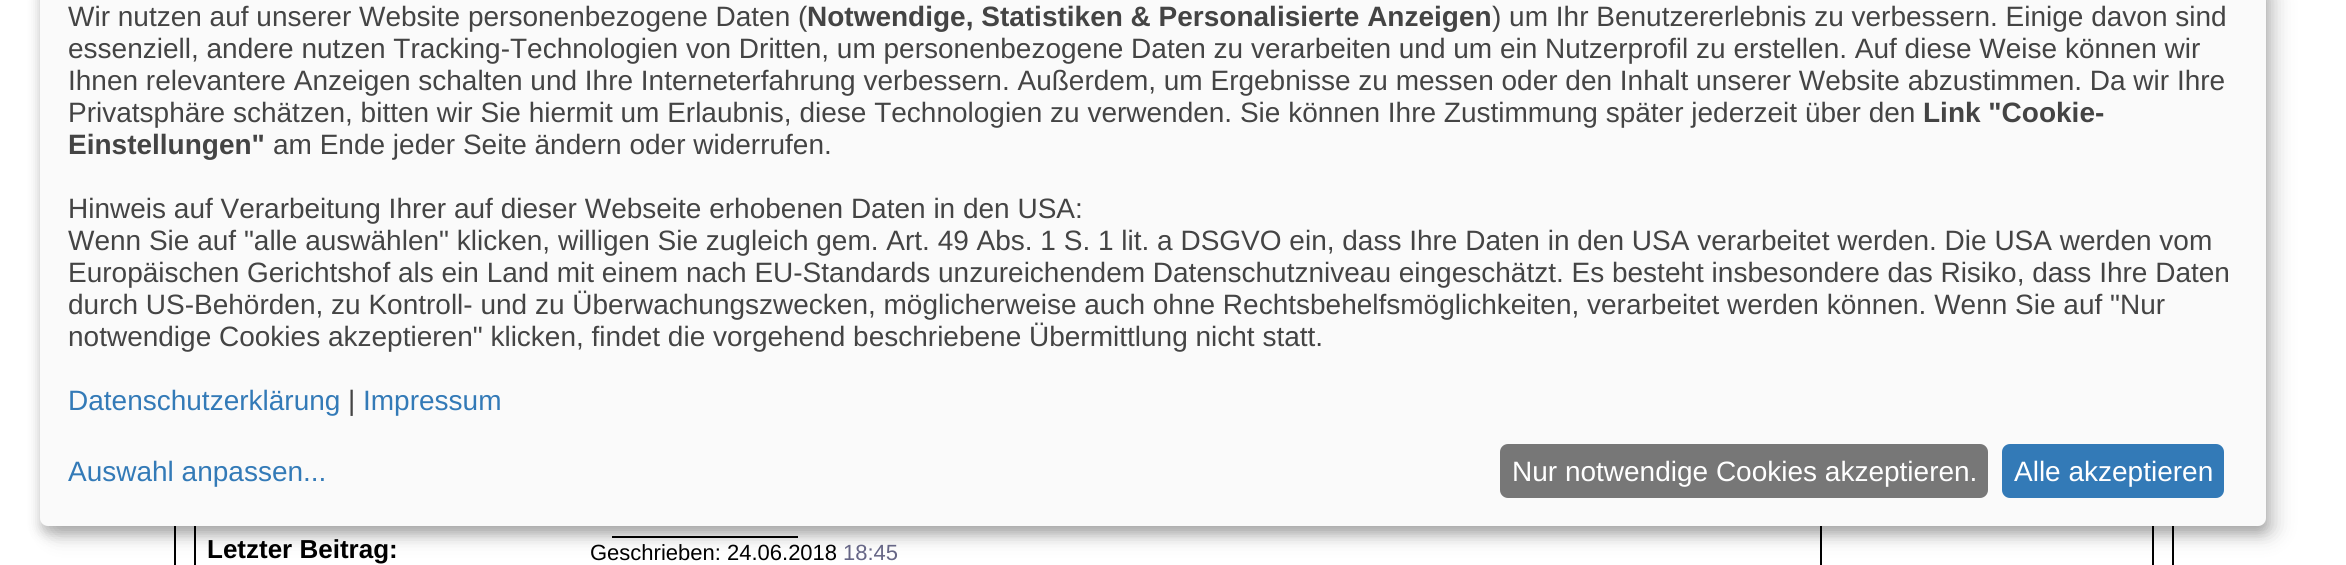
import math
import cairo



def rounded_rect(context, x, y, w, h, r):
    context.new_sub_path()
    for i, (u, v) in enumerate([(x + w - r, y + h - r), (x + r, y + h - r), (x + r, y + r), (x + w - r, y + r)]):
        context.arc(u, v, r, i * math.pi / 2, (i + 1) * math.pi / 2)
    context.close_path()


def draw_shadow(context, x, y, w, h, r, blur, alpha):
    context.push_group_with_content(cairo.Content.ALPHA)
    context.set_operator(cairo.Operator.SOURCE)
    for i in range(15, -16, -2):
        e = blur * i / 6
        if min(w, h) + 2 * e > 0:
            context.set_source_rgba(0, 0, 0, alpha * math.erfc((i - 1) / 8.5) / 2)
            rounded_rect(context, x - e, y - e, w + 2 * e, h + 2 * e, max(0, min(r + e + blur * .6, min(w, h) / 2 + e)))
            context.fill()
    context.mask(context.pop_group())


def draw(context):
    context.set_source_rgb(1, 1, 1)
    context.paint()
    context.set_source_rgb(0, 0, 0)
    context.rectangle(174, 526, 2000, 39)
    context.fill()
    context.set_source_rgb(1, 1, 1)
    context.rectangle(176, 526, 1996, 39)
    context.fill()
    context.set_source_rgb(0, 0, 0)
    context.rectangle(194, 526, 1960, 39)
    context.fill()
    context.set_source_rgb(1, 1, 1)
    context.rectangle(196, 526, 1624, 39)
    context.fill()
    context.set_source_rgb(0, 0, 0)
    context.rectangle(612, 536, 186, 2)
    context.fill()
    context.set_source_rgb(1, 1, 1)
    context.rectangle(1822, 526, 330, 39)
    context.fill()
    context.set_source_rgb(0, 0, 0)
    draw_shadow(context, 50, -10, 2226, 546, 8, 10, 0.19)
    draw_shadow(context, 40, -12, 2226, 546, 8, 6, 0.2)
    context.set_source_rgb(250 / 255, 250 / 255, 250 / 255)
    rounded_rect(context, 40, -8, 2226, 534, 8)
    context.fill()
    context.set_source_rgb(119 / 255, 119 / 255, 119 / 255)
    rounded_rect(context, 1500, 444, 488, 54, 8)
    context.fill()
    context.set_source_rgb(51 / 255, 122 / 255, 183 / 255)
    rounded_rect(context, 2002, 444, 222, 54, 8)
    context.fill()
    context.select_font_face("Liberation Sans")
    context.set_font_size(28)
    context.set_source_rgb(68 / 255, 68 / 255, 68 / 255)
    context.move_to(68, 26)
    context.show_text("Wir nutzen auf unserer Website personenbezogene Daten (")
    context.select_font_face("Liberation Sans", cairo.FontSlant.NORMAL, cairo.FontWeight.BOLD)
    context.move_to(807, 26)
    context.show_text("Notwendige, Statistiken & Personalisierte Anzeigen")
    context.select_font_face("Liberation Sans")
    context.move_to(1492, 26)
    context.show_text(") um Ihr Benutzererlebnis zu verbessern. Einige davon sind")
    context.move_to(68, 58)
    context.show_text("essenziell, andere nutzen Tracking-Technologien von Dritten, um personenbezogene Daten zu verarbeiten und um ein Nutzerprofil zu erstellen. Auf diese Weise können wir")
    context.move_to(68, 90)
    context.show_text("Ihnen relevantere Anzeigen schalten und Ihre Interneterfahrung verbessern. Außerdem, um Ergebnisse zu messen oder den Inhalt unserer Website abzustimmen. Da wir Ihre")
    context.move_to(68, 122)
    context.show_text("Privatsphäre schätzen, bitten wir Sie hiermit um Erlaubnis, diese Technologien zu verwenden. Sie können Ihre Zustimmung später jederzeit über den")
    context.select_font_face("Liberation Sans", cairo.FontSlant.NORMAL, cairo.FontWeight.BOLD)
    context.move_to(1923, 122)
    context.show_text("Link \"Cookie-")
    context.move_to(68, 154)
    context.show_text("Einstellungen\"")
    context.select_font_face("Liberation Sans")
    context.move_to(273, 154)
    context.show_text("am Ende jeder Seite ändern oder widerrufen.")
    context.move_to(68, 218)
    context.show_text("Hinweis auf Verarbeitung Ihrer auf dieser Webseite erhobenen Daten in den USA:")
    context.move_to(68, 250)
    context.show_text("Wenn Sie auf \"alle auswählen\" klicken, willigen Sie zugleich gem. Art. 49 Abs. 1 S. 1 lit. a DSGVO ein, dass Ihre Daten in den USA verarbeitet werden. Die USA werden vom")
    context.move_to(68, 282)
    context.show_text("Europäischen Gerichtshof als ein Land mit einem nach EU-Standards unzureichendem Datenschutzniveau eingeschätzt. Es besteht insbesondere das Risiko, dass Ihre Daten")
    context.move_to(68, 314)
    context.show_text("durch US-Behörden, zu Kontroll- und zu Überwachungszwecken, möglicherweise auch ohne Rechtsbehelfsmöglichkeiten, verarbeitet werden können. Wenn Sie auf \"Nur")
    context.move_to(68, 346)
    context.show_text("notwendige Cookies akzeptieren\" klicken, findet die vorgehend beschriebene Übermittlung nicht statt.")
    context.set_source_rgb(51 / 255, 122 / 255, 183 / 255)
    context.move_to(68, 410)
    context.show_text("Datenschutzerklärung")
    context.set_source_rgb(68 / 255, 68 / 255, 68 / 255)
    context.move_to(348, 410)
    context.show_text("|")
    context.set_source_rgb(51 / 255, 122 / 255, 183 / 255)
    context.move_to(363, 410)
    context.show_text("Impressum")
    context.move_to(68, 481)
    context.show_text("Auswahl anpassen...")
    context.set_source_rgb(1, 1, 1)
    context.move_to(1512, 481)
    context.show_text("Nur notwendige Cookies akzeptieren.")
    context.move_to(2014, 481)
    context.show_text("Alle akzeptieren")
    context.select_font_face("Liberation Sans", cairo.FontSlant.NORMAL, cairo.FontWeight.BOLD)
    context.set_font_size(26)
    context.set_source_rgb(0, 0, 0)
    context.move_to(207, 558)
    context.show_text("Letzter Beitrag:")
    context.select_font_face("Liberation Sans")
    context.set_font_size(22)
    context.move_to(590, 560)
    context.show_text("Geschrieben: 24.06.2018")
    context.set_source_rgb(102 / 255, 102 / 255, 134 / 255)
    context.move_to(843, 560)
    context.show_text("18:45")


surface = cairo.ImageSurface(cairo.Format.RGB24, 2346, 565)
context = cairo.Context(surface)
options = cairo.FontOptions()
options.set_hint_metrics(cairo.HintMetrics.OFF)
options.set_hint_style(cairo.HintStyle.NONE)
context.set_font_options(options)
context.set_miter_limit(4)
draw(context)
surface.write_to_png("out.png")
